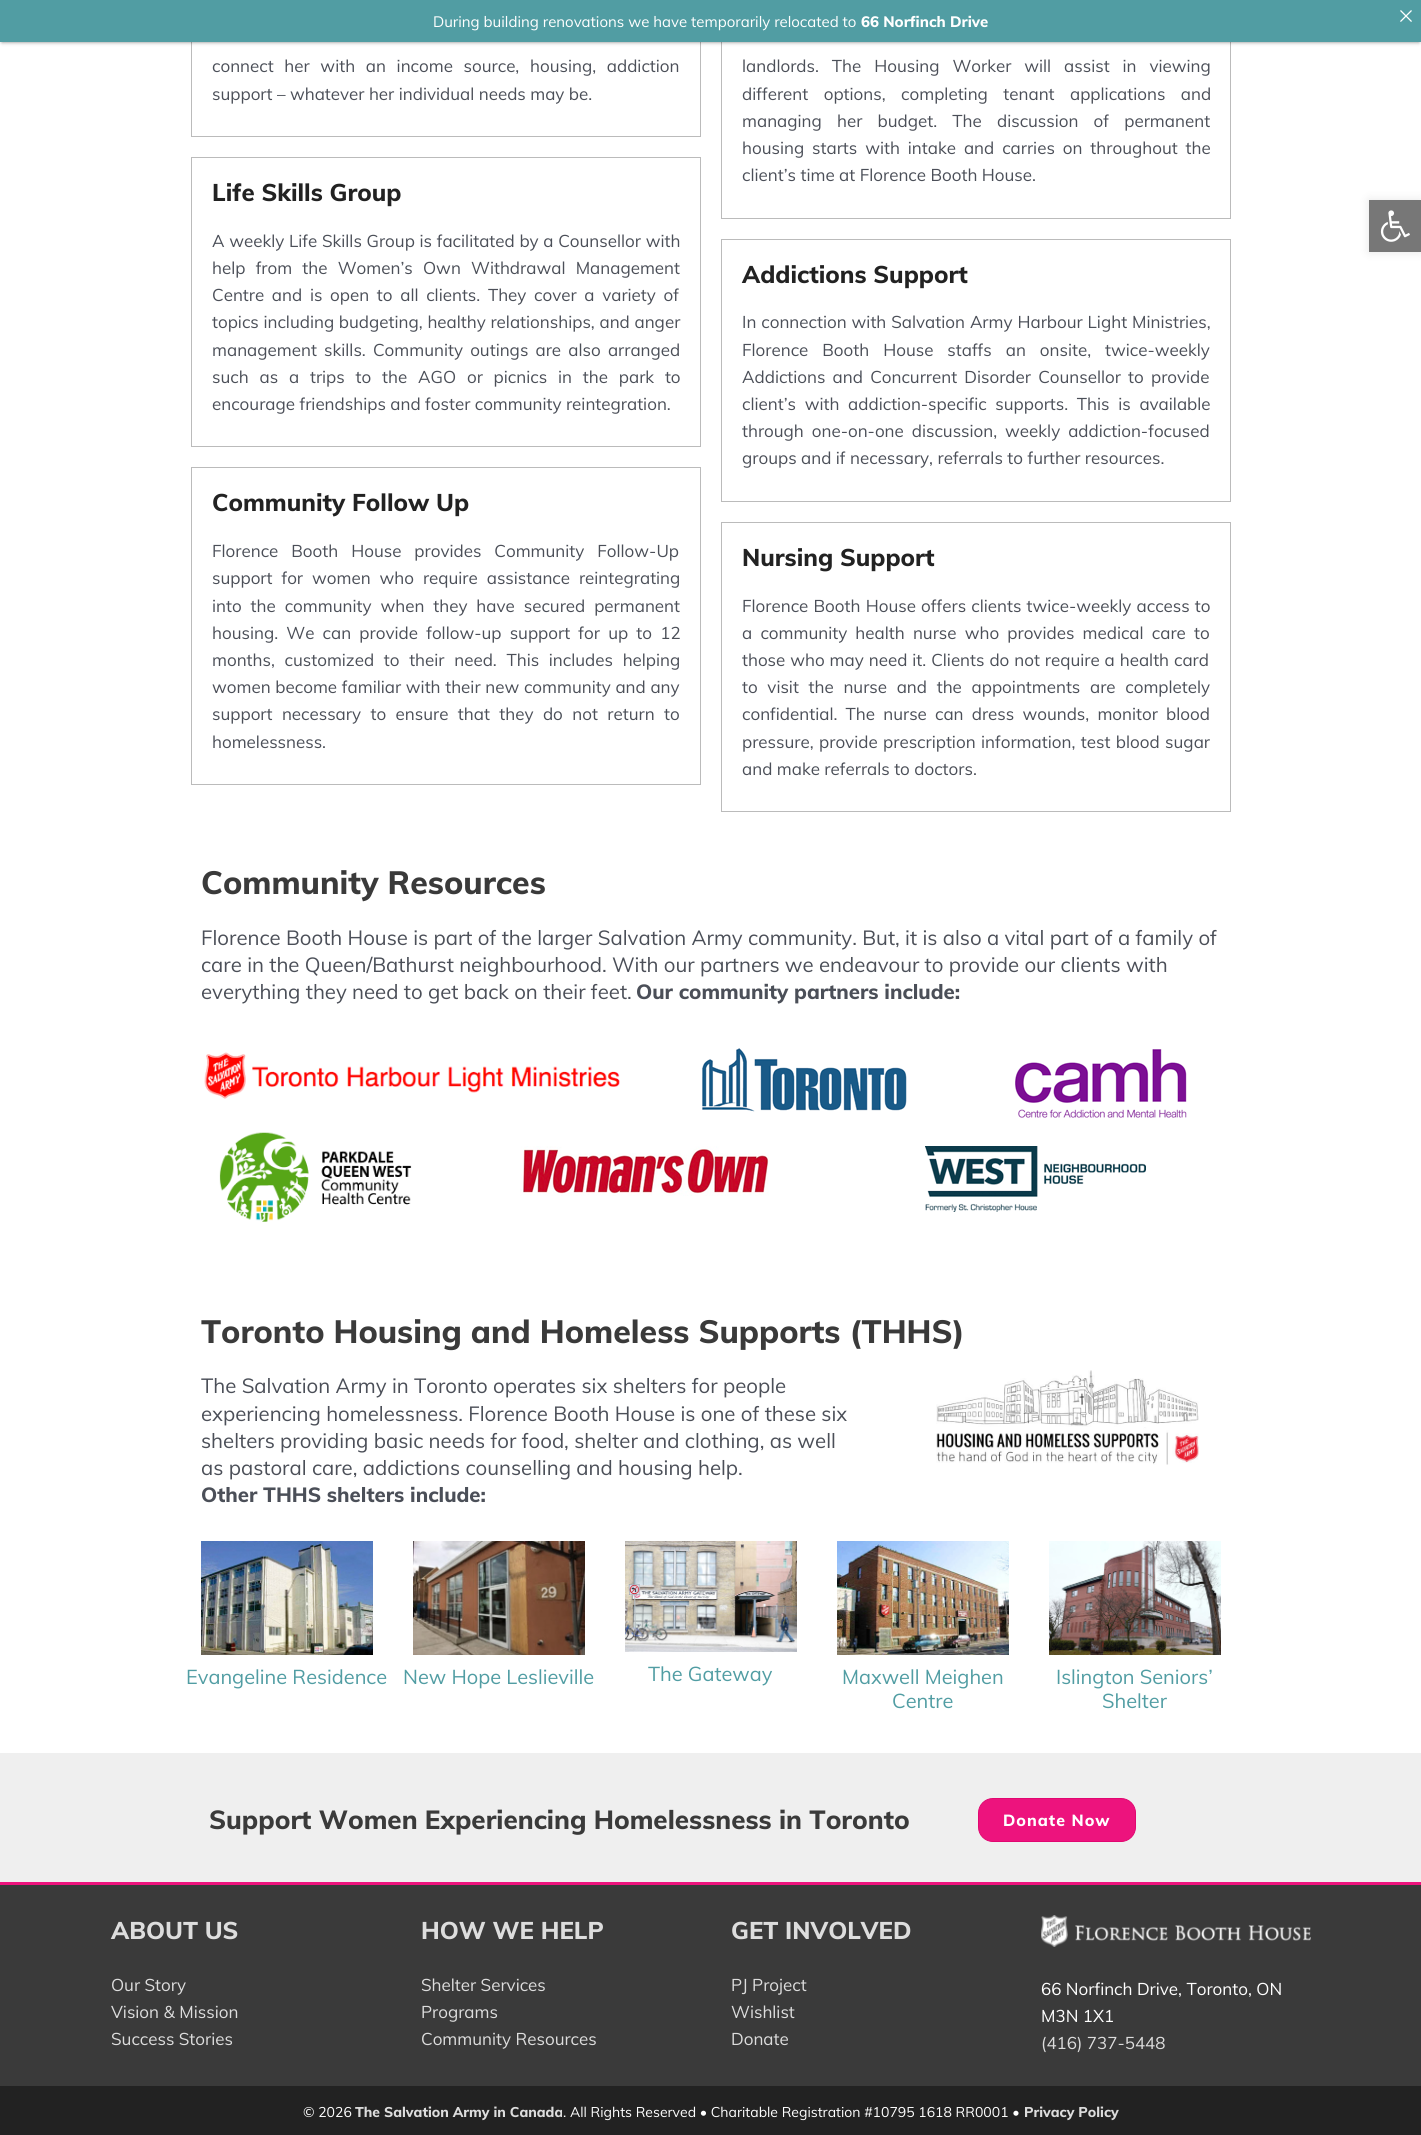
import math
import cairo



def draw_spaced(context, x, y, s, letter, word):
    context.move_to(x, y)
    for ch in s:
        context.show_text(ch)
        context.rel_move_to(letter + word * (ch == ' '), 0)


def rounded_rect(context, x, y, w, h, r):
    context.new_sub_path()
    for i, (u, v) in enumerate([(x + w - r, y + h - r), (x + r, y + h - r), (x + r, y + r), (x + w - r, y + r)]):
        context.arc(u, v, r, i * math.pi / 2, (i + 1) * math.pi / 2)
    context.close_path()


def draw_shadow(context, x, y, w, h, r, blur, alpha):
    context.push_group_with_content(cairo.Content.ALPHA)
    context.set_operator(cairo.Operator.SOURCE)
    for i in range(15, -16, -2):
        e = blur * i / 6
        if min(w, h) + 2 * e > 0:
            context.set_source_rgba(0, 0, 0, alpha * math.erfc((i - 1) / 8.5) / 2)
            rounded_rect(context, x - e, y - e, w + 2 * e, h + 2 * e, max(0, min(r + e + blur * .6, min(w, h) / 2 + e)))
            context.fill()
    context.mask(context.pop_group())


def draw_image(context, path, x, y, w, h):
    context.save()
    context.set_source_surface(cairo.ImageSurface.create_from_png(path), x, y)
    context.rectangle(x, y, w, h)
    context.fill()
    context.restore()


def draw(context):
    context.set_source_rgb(1, 1, 1)
    context.paint()
    context.rectangle(191.5, -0.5, 509, 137)
    context.set_source_rgb(187 / 255, 187 / 255, 187 / 255)
    context.set_line_width(1)
    context.stroke()
    context.rectangle(721.5, -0.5, 509, 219)
    context.stroke()
    context.set_source_rgb(0, 0, 0)
    draw_shadow(context, 2, 4, 1417, 38, 0, 2, 0.5)
    context.set_source_rgb(81 / 255, 157 / 255, 163 / 255)
    context.rectangle(0, 0, 1421, 42)
    context.fill()
    draw_image(context, "images/1.png", 1400, 10, 12, 12)
    context.rectangle(191.5, 157.5, 509, 289)
    context.set_source_rgb(187 / 255, 187 / 255, 187 / 255)
    context.stroke()
    context.rectangle(191.5, 467.5, 509, 317)
    context.stroke()
    context.rectangle(721.5, 239.5, 509, 262)
    context.stroke()
    context.rectangle(721.5, 522.5, 509, 289)
    context.stroke()
    draw_image(context, "images/2.png", 204, 1052, 416, 47)
    draw_image(context, "images/3.png", 702, 1048, 205, 64)
    draw_image(context, "images/4.png", 1015, 1049, 172, 69)
    draw_image(context, "images/5.png", 219, 1132, 193, 90)
    draw_image(context, "images/6.png", 520, 1146, 249, 50)
    draw_image(context, "images/7.png", 925, 1146, 221, 66)
    draw_image(context, "images/8.png", 936, 1370, 263, 95)
    draw_image(context, "images/9.png", 201, 1541, 172, 114)
    draw_image(context, "images/10.png", 413, 1541, 172, 114)
    draw_image(context, "images/11.png", 625, 1541, 172, 111)
    draw_image(context, "images/12.png", 837, 1541, 172, 114)
    draw_image(context, "images/13.png", 1049, 1541, 172, 114)
    context.set_source_rgb(239 / 255, 239 / 255, 239 / 255)
    context.rectangle(0, 1753, 1421, 129)
    context.fill()
    context.set_source_rgb(237 / 255, 19 / 255, 125 / 255)
    rounded_rect(context, 978.5, 1798.5, 157, 43, 14.5)
    context.fill_preserve()
    context.set_source_rgb(225 / 255, 7 / 255, 113 / 255)
    context.stroke()
    context.set_source_rgb(58 / 255, 58 / 255, 58 / 255)
    context.rectangle(0, 1885, 1421, 201)
    context.fill()
    context.set_source_rgb(237 / 255, 19 / 255, 125 / 255)
    context.rectangle(0, 1882, 1421, 3)
    context.fill()
    draw_image(context, "images/14.png", 1041, 1915, 270, 32)
    context.set_source_rgb(34 / 255, 34 / 255, 34 / 255)
    context.rectangle(0, 2086, 1421, 49)
    context.fill()
    context.set_source_rgb(0, 0, 0)
    draw_shadow(context, 1369, 200, 52, 52, 0, 5, 0.1)
    context.set_source_rgb(119 / 255, 119 / 255, 119 / 255)
    context.rectangle(1369, 200, 52, 52)
    context.fill()
    draw_image(context, "images/15.png", 1380, 210, 30, 32)
    context.select_font_face("Muli")
    context.set_font_size(15)
    context.set_source_rgb(1, 1, 1)
    context.move_to(433, 27)
    context.show_text("During building renovations we have temporarily relocated to")
    context.select_font_face("Muli ExtraBold")
    context.move_to(861, 27)
    context.show_text("66 Norfinch Drive")
    context.select_font_face("Muli")
    context.set_font_size(17)
    context.set_source_rgb(75 / 255, 79 / 255, 88 / 255)
    draw_spaced(context, 212, 72, "connect her with an income source, housing, addiction", 0, 6.25)
    context.move_to(212, 100)
    context.show_text("support – whatever her individual needs may be.")
    context.select_font_face("Muli ExtraBold")
    context.set_font_size(24)
    context.set_source_rgb(34 / 255, 34 / 255, 34 / 255)
    context.move_to(212, 201)
    context.show_text("Life Skills Group")
    context.select_font_face("Muli")
    context.set_font_size(17)
    context.set_source_rgb(75 / 255, 79 / 255, 88 / 255)
    draw_spaced(context, 212, 247, "A weekly Life Skills Group is facilitated by a Counsellor with", 0, 0.25)
    draw_spaced(context, 212, 274, "help from the Women’s Own Withdrawal Management", 0, 5.75)
    draw_spaced(context, 212, 301, "Centre and is open to all clients. They cover a variety of", 0, 3.25)
    draw_spaced(context, 212, 328, "topics including budgeting, healthy relationships, and anger", 0, 0.25)
    draw_spaced(context, 212, 356, "management skills. Community outings are also arranged", 0, 2.75)
    draw_spaced(context, 212, 383, "such as a trips to the AGO or picnics in the park to", 0, 6.4)
    context.move_to(212, 410)
    context.show_text("encourage friendships and foster community reintegration.")
    context.select_font_face("Muli ExtraBold")
    context.set_font_size(24)
    context.set_source_rgb(34 / 255, 34 / 255, 34 / 255)
    context.move_to(212, 511)
    context.show_text("Community Follow Up")
    context.select_font_face("Muli")
    context.set_font_size(17)
    context.set_source_rgb(75 / 255, 79 / 255, 88 / 255)
    draw_spaced(context, 212, 557, "Florence Booth House provides Community Follow-Up", 0, 8.5)
    draw_spaced(context, 212, 584, "support for women who require assistance reintegrating", 0, 4.5)
    draw_spaced(context, 212, 612, "into the community when they have secured permanent", 0, 4.5)
    draw_spaced(context, 212, 639, "housing. We can provide follow-up support for up to 12", 0, 3.75)
    draw_spaced(context, 212, 666, "months, customized to their need. This includes helping", 0, 5.25)
    draw_spaced(context, 212, 693, "women become familiar with their new community and any", 0, 0.25)
    draw_spaced(context, 212, 720, "support necessary to ensure that they do not return to", 0, 5)
    context.move_to(212, 748)
    context.show_text("homelessness.")
    draw_spaced(context, 742, 72, "landlords. The Housing Worker will assist in viewing", 0, 8.5)
    draw_spaced(context, 742, 100, "different options, completing tenant applications and", 0, 11)
    draw_spaced(context, 742, 127, "managing her budget. The discussion of permanent", 0, 10.75)
    draw_spaced(context, 742, 154, "housing starts with intake and carries on throughout the", 0, 3.5)
    context.move_to(742, 181)
    context.show_text("client’s time at Florence Booth House.")
    context.select_font_face("Muli ExtraBold")
    context.set_font_size(24)
    context.set_source_rgb(34 / 255, 34 / 255, 34 / 255)
    context.move_to(742, 283)
    context.show_text("Addictions Support")
    context.select_font_face("Muli")
    context.set_font_size(17)
    context.set_source_rgb(75 / 255, 79 / 255, 88 / 255)
    draw_spaced(context, 742, 328, "In connection with Salvation Army Harbour Light Ministries,", 0, 0.5)
    draw_spaced(context, 742, 356, "Florence Booth House staffs an onsite, twice-weekly", 0, 9.5)
    draw_spaced(context, 742, 383, "Addictions and Concurrent Disorder Counsellor to provide", 0, 2.75)
    draw_spaced(context, 742, 410, "client’s with addiction-specific supports. This is available", 0, 4.25)
    draw_spaced(context, 742, 437, "through one-on-one discussion, weekly addiction-focused", 0, 3.5)
    context.move_to(742, 464)
    context.show_text("groups and if necessary, referrals to further resources.")
    context.select_font_face("Muli ExtraBold")
    context.set_font_size(24)
    context.set_source_rgb(34 / 255, 34 / 255, 34 / 255)
    context.move_to(742, 566)
    context.show_text("Nursing Support")
    context.select_font_face("Muli")
    context.set_font_size(17)
    context.set_source_rgb(75 / 255, 79 / 255, 88 / 255)
    draw_spaced(context, 742, 612, "Florence Booth House offers clients twice-weekly access to", 0, 0.75)
    draw_spaced(context, 742, 639, "a community health nurse who provides medical care to", 0, 3.75)
    draw_spaced(context, 742, 666, "those who may need it. Clients do not require a health card", 0, 0.5)
    draw_spaced(context, 742, 693, "to visit the nurse and the appointments are completely", 0, 5.25)
    draw_spaced(context, 742, 720, "confidential. The nurse can dress wounds, monitor blood", 0, 3.75)
    draw_spaced(context, 742, 748, "pressure, provide prescription information, test blood sugar", 0, 1)
    context.move_to(742, 775)
    context.show_text("and make referrals to doctors.")
    context.select_font_face("Muli ExtraBold")
    context.set_font_size(32)
    context.set_source_rgb(58 / 255, 58 / 255, 58 / 255)
    context.move_to(201, 894)
    context.show_text("Community Resources")
    context.select_font_face("Muli")
    context.set_font_size(20.4)
    context.set_source_rgb(75 / 255, 79 / 255, 88 / 255)
    context.move_to(201, 945)
    context.show_text("Florence Booth House is part of the larger Salvation Army community. But, it is also a vital part of a family of")
    context.move_to(201, 972)
    context.show_text("care in the Queen/Bathurst neighbourhood. With our partners we endeavour to provide our clients with")
    context.move_to(201, 999)
    context.show_text("everything they need to get back on their feet.")
    context.select_font_face("Muli ExtraBold")
    context.move_to(636, 999)
    context.show_text("Our community partners include:")
    context.set_font_size(32)
    context.set_source_rgb(58 / 255, 58 / 255, 58 / 255)
    context.move_to(201, 1343)
    context.show_text("Toronto Housing and Homeless Supports (THHS)")
    context.select_font_face("Muli")
    context.set_font_size(20.4)
    context.set_source_rgb(75 / 255, 79 / 255, 88 / 255)
    context.move_to(201, 1393)
    context.show_text("The Salvation Army in Toronto operates six shelters for people")
    context.move_to(201, 1421)
    context.show_text("experiencing homelessness. Florence Booth House is one of these six")
    context.move_to(201, 1448)
    context.show_text("shelters providing basic needs for food, shelter and clothing, as well")
    context.move_to(201, 1475)
    context.show_text("as pastoral care, addictions counselling and housing help.")
    context.select_font_face("Muli ExtraBold")
    context.move_to(201, 1502)
    context.show_text("Other THHS shelters include:")
    context.select_font_face("Muli")
    context.set_font_size(20)
    context.set_source_rgb(81 / 255, 157 / 255, 163 / 255)
    context.move_to(186, 1684)
    context.show_text("Evangeline Residence")
    context.move_to(403, 1684)
    context.show_text("New Hope Leslieville")
    context.move_to(648, 1681)
    context.show_text("The Gateway")
    context.move_to(842, 1684)
    context.show_text("Maxwell Meighen")
    context.move_to(892, 1708)
    context.show_text("Centre")
    context.move_to(1056, 1684)
    context.show_text("Islington Seniors’")
    context.move_to(1102, 1708)
    context.show_text("Shelter")
    context.select_font_face("Muli ExtraBold")
    context.set_font_size(26)
    context.set_source_rgb(58 / 255, 58 / 255, 58 / 255)
    context.move_to(209, 1829)
    context.show_text("Support Women Experiencing Homelessness in Toronto")
    context.set_font_size(16)
    context.set_source_rgb(1, 1, 1)
    draw_spaced(context, 1003, 1826, "Donate Now", 1, 0)
    context.set_font_size(24)
    context.set_source_rgb(221 / 255, 221 / 255, 221 / 255)
    context.move_to(111, 1939)
    context.show_text("ABOUT US")
    context.select_font_face("Muli")
    context.set_font_size(17)
    context.move_to(111, 1991)
    context.show_text("Our Story")
    context.move_to(111, 2018)
    context.show_text("Vision & Mission")
    context.move_to(111, 2045)
    context.show_text("Success Stories")
    context.select_font_face("Muli ExtraBold")
    context.set_font_size(24)
    context.move_to(421, 1939)
    context.show_text("HOW WE HELP")
    context.select_font_face("Muli")
    context.set_font_size(17)
    context.move_to(421, 1991)
    context.show_text("Shelter Services")
    context.move_to(421, 2018)
    context.show_text("Programs")
    context.move_to(421, 2045)
    context.show_text("Community Resources")
    context.select_font_face("Muli ExtraBold")
    context.set_font_size(24)
    context.move_to(731, 1939)
    context.show_text("GET INVOLVED")
    context.select_font_face("Muli")
    context.set_font_size(17)
    context.move_to(731, 1991)
    context.show_text("PJ Project")
    context.move_to(731, 2018)
    context.show_text("Wishlist")
    context.move_to(731, 2045)
    context.show_text("Donate")
    context.set_source_rgb(1, 1, 1)
    context.move_to(1041, 1995)
    context.show_text("66 Norfinch Drive, Toronto, ON")
    context.move_to(1041, 2022)
    context.show_text("M3N 1X1")
    context.set_source_rgb(221 / 255, 221 / 255, 221 / 255)
    context.move_to(1041, 2049)
    context.show_text("(416) 737-5448")
    context.set_font_size(14)
    context.set_source_rgb(1, 1, 1)
    context.move_to(303, 2117)
    context.show_text("© 2026")
    context.select_font_face("Muli ExtraBold")
    context.set_source_rgb(221 / 255, 221 / 255, 221 / 255)
    context.move_to(355, 2117)
    context.show_text("The Salvation Army in Canada")
    context.select_font_face("Muli")
    context.set_source_rgb(1, 1, 1)
    context.move_to(563, 2117)
    context.show_text(". All Rights Reserved • Charitable Registration #10795 1618 RR0001 •")
    context.select_font_face("Muli ExtraBold")
    context.set_source_rgb(221 / 255, 221 / 255, 221 / 255)
    context.move_to(1024, 2117)
    context.show_text("Privacy Policy")


surface = cairo.ImageSurface(cairo.Format.RGB24, 1421, 2135)
context = cairo.Context(surface)
options = cairo.FontOptions()
options.set_hint_metrics(cairo.HintMetrics.OFF)
options.set_hint_style(cairo.HintStyle.NONE)
context.set_font_options(options)
context.set_miter_limit(4)
draw(context)
surface.write_to_png("out.png")
